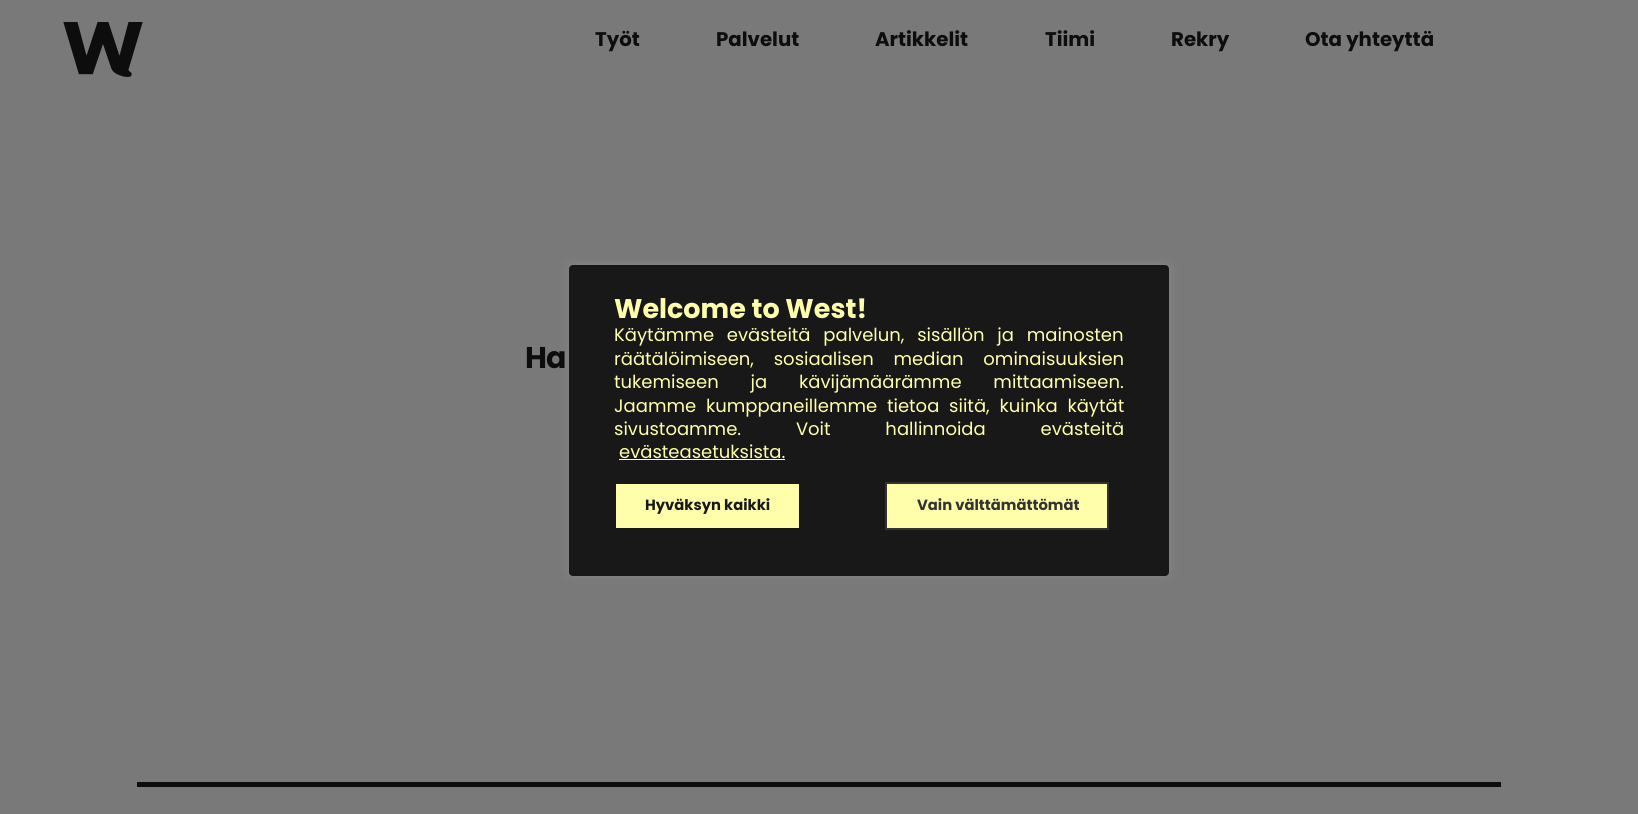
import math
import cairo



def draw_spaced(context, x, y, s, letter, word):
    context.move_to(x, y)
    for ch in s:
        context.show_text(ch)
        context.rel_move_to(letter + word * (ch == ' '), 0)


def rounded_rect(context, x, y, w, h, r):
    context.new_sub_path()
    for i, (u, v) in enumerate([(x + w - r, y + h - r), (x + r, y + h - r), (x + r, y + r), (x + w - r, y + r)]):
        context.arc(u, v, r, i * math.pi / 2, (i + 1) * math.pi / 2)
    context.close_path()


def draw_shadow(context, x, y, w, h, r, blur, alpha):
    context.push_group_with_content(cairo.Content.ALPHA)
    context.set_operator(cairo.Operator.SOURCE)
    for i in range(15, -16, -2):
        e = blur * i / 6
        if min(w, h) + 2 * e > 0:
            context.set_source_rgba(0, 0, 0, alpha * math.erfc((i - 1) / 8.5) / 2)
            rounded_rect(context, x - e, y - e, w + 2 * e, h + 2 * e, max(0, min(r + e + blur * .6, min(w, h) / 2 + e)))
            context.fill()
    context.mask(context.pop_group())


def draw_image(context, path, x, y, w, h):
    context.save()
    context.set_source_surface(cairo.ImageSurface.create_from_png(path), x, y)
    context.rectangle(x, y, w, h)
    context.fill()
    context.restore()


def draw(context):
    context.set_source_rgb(121 / 255, 121 / 255, 121 / 255)
    context.paint()
    draw_image(context, "images/1.png", 63, 22, 80, 55)
    context.set_source_rgb(12 / 255, 13 / 255, 12 / 255)
    context.rectangle(137, 782, 1364, 5)
    context.fill()
    context.set_source_rgb(172 / 255, 171 / 255, 171 / 255)
    draw_shadow(context, 569, 264, 600, 311, 4, 5, 0.3)
    context.set_source_rgb(24 / 255, 24 / 255, 24 / 255)
    rounded_rect(context, 569, 265, 600, 311, 4)
    context.fill()
    context.set_source_rgb(1, 254 / 255, 170 / 255)
    context.rectangle(619, 459, 166, 1)
    context.fill()
    context.rectangle(616, 484, 183, 44)
    context.fill()
    context.rectangle(886, 483, 222, 46)
    context.fill_preserve()
    context.set_source_rgb(51 / 255, 51 / 255, 51 / 255)
    context.stroke()
    context.select_font_face("Poppins", cairo.FontSlant.NORMAL, cairo.FontWeight.BOLD)
    context.set_font_size(19.75)
    context.set_source_rgb(12 / 255, 13 / 255, 12 / 255)
    context.move_to(595, 46)
    context.show_text("Työt")
    context.move_to(716, 46)
    context.show_text("Palvelut")
    context.move_to(875, 46)
    context.show_text("Artikkelit")
    context.move_to(1045, 46)
    context.show_text("Tiimi")
    context.move_to(1171, 46)
    context.show_text("Rekry")
    context.move_to(1305, 46)
    context.show_text("Ota yhteyttä")
    context.set_font_size(30)
    draw_spaced(context, 525, 368, "Ha", -1, 0)
    context.set_font_size(27)
    context.set_source_rgb(1, 254 / 255, 170 / 255)
    context.move_to(614, 318)
    context.show_text("Welcome to West!")
    context.select_font_face("Poppins")
    context.set_font_size(18)
    draw_spaced(context, 614, 341, "Käytämme evästeitä palvelun, sisällön ja mainosten", 0, 8)
    draw_spaced(context, 614, 365, "räätälöimiseen, sosiaalisen median ominaisuuksien", 0, 15)
    draw_spaced(context, 614, 388, "tukemiseen ja kävijämäärämme mittaamiseen.", 0, 27)
    draw_spaced(context, 614, 412, "Jaamme kumppaneillemme tietoa siitä, kuinka käytät", 0, 5)
    draw_spaced(context, 614, 435, "sivustoamme. Voit hallinnoida evästeitä", 0, 50)
    context.move_to(619, 458)
    context.show_text("evästeasetuksista.")
    context.select_font_face("Poppins", cairo.FontSlant.NORMAL, cairo.FontWeight.BOLD)
    context.set_font_size(14.75)
    context.set_source_rgb(24 / 255, 24 / 255, 24 / 255)
    context.move_to(645, 510)
    context.show_text("Hyväksyn kaikki")
    context.set_source_rgb(51 / 255, 51 / 255, 51 / 255)
    context.move_to(917, 510)
    context.show_text("Vain välttämättömät")


surface = cairo.ImageSurface(cairo.Format.RGB24, 1638, 814)
context = cairo.Context(surface)
options = cairo.FontOptions()
options.set_hint_metrics(cairo.HintMetrics.OFF)
options.set_hint_style(cairo.HintStyle.NONE)
context.set_font_options(options)
context.set_miter_limit(4)
draw(context)
surface.write_to_png("out.png")
